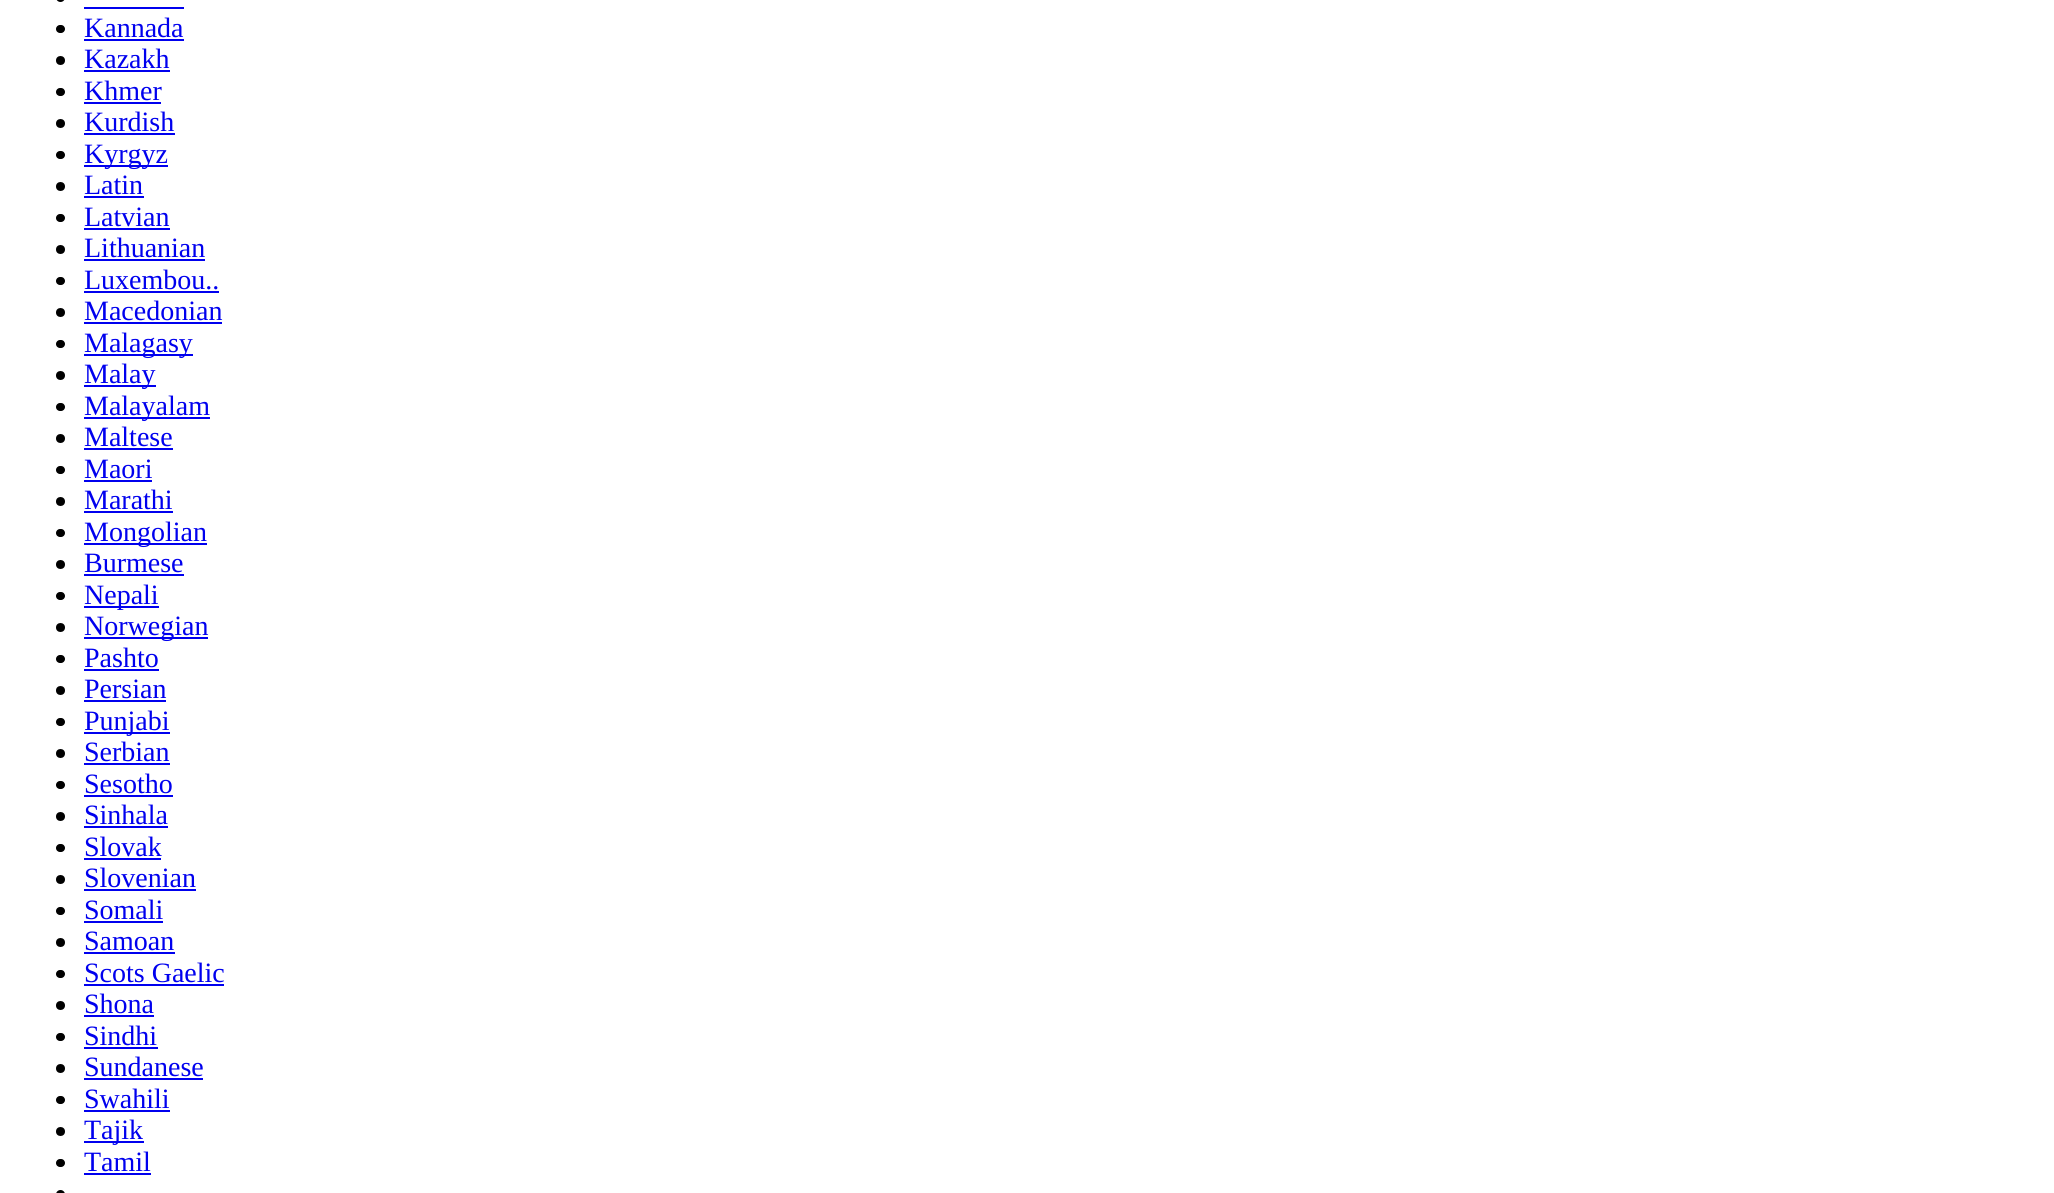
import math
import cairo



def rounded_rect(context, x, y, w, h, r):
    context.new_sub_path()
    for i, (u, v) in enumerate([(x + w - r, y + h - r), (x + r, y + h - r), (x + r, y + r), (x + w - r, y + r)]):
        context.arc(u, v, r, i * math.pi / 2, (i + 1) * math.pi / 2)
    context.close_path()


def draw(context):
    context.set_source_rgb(1, 1, 1)
    context.paint()
    context.set_source_rgb(0, 0, 0)
    rounded_rect(context, 56, -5, 9, 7, 4.5)
    context.fill()
    context.set_source_rgb(0, 0, 238 / 255)
    context.rectangle(84, 7, 100, 2)
    context.fill()
    context.set_source_rgb(0, 0, 0)
    rounded_rect(context, 56, 25, 9, 8, 4)
    context.fill()
    context.set_source_rgb(0, 0, 238 / 255)
    context.rectangle(84, 39, 100, 2)
    context.fill()
    context.set_source_rgb(0, 0, 0)
    context.arc(60.5, 60.5, 4.5, 0, 2 * math.pi)
    context.fill()
    context.set_source_rgb(0, 0, 238 / 255)
    context.rectangle(84, 70, 86, 2)
    context.fill()
    context.set_source_rgb(0, 0, 0)
    rounded_rect(context, 56, 88, 9, 8, 4)
    context.fill()
    context.set_source_rgb(0, 0, 238 / 255)
    context.rectangle(84, 102, 77, 2)
    context.fill()
    context.set_source_rgb(0, 0, 0)
    context.arc(60.5, 123.5, 4.5, 0, 2 * math.pi)
    context.fill()
    context.set_source_rgb(0, 0, 238 / 255)
    context.rectangle(84, 133, 91, 2)
    context.fill()
    context.set_source_rgb(0, 0, 0)
    rounded_rect(context, 56, 151, 9, 8, 4)
    context.fill()
    context.set_source_rgb(0, 0, 238 / 255)
    context.rectangle(84, 165, 84, 2)
    context.fill()
    context.set_source_rgb(0, 0, 0)
    context.arc(60.5, 186.5, 4.5, 0, 2 * math.pi)
    context.fill()
    context.set_source_rgb(0, 0, 238 / 255)
    context.rectangle(84, 196, 60, 2)
    context.fill()
    context.set_source_rgb(0, 0, 0)
    rounded_rect(context, 56, 214, 9, 8, 4)
    context.fill()
    context.set_source_rgb(0, 0, 238 / 255)
    context.rectangle(84, 228, 86, 2)
    context.fill()
    context.set_source_rgb(0, 0, 0)
    context.arc(60.5, 249.5, 4.5, 0, 2 * math.pi)
    context.fill()
    context.set_source_rgb(0, 0, 238 / 255)
    context.rectangle(84, 259, 121, 2)
    context.fill()
    context.set_source_rgb(0, 0, 0)
    rounded_rect(context, 56, 277, 9, 8, 4)
    context.fill()
    context.set_source_rgb(0, 0, 238 / 255)
    context.rectangle(84, 291, 135, 2)
    context.fill()
    context.set_source_rgb(0, 0, 0)
    context.arc(60.5, 312.5, 4.5, 0, 2 * math.pi)
    context.fill()
    context.set_source_rgb(0, 0, 238 / 255)
    context.rectangle(84, 322, 138, 2)
    context.fill()
    context.set_source_rgb(0, 0, 0)
    rounded_rect(context, 56, 340, 9, 8, 4)
    context.fill()
    context.set_source_rgb(0, 0, 238 / 255)
    context.rectangle(84, 354, 109, 2)
    context.fill()
    context.set_source_rgb(0, 0, 0)
    context.arc(60.5, 375.5, 4.5, 0, 2 * math.pi)
    context.fill()
    context.set_source_rgb(0, 0, 238 / 255)
    context.rectangle(84, 385, 72, 2)
    context.fill()
    context.set_source_rgb(0, 0, 0)
    rounded_rect(context, 56, 403, 9, 8, 4)
    context.fill()
    context.set_source_rgb(0, 0, 238 / 255)
    context.rectangle(84, 417, 126, 2)
    context.fill()
    context.set_source_rgb(0, 0, 0)
    context.arc(60.5, 438.5, 4.5, 0, 2 * math.pi)
    context.fill()
    context.set_source_rgb(0, 0, 238 / 255)
    context.rectangle(84, 448, 89, 2)
    context.fill()
    context.set_source_rgb(0, 0, 0)
    rounded_rect(context, 56, 466, 9, 8, 4)
    context.fill()
    context.set_source_rgb(0, 0, 238 / 255)
    context.rectangle(84, 480, 68, 2)
    context.fill()
    context.set_source_rgb(0, 0, 0)
    context.arc(60.5, 501.5, 4.5, 0, 2 * math.pi)
    context.fill()
    context.set_source_rgb(0, 0, 238 / 255)
    context.rectangle(84, 511, 89, 2)
    context.fill()
    context.set_source_rgb(0, 0, 0)
    rounded_rect(context, 56, 529, 9, 8, 4)
    context.fill()
    context.set_source_rgb(0, 0, 238 / 255)
    context.rectangle(84, 543, 123, 2)
    context.fill()
    context.set_source_rgb(0, 0, 0)
    context.arc(60.5, 564.5, 4.5, 0, 2 * math.pi)
    context.fill()
    context.set_source_rgb(0, 0, 238 / 255)
    context.rectangle(84, 574, 100, 2)
    context.fill()
    context.set_source_rgb(0, 0, 0)
    rounded_rect(context, 56, 592, 9, 8, 4)
    context.fill()
    context.set_source_rgb(0, 0, 238 / 255)
    context.rectangle(84, 606, 75, 2)
    context.fill()
    context.set_source_rgb(0, 0, 0)
    context.arc(60.5, 627.5, 4.5, 0, 2 * math.pi)
    context.fill()
    context.set_source_rgb(0, 0, 238 / 255)
    context.rectangle(84, 637, 124, 2)
    context.fill()
    context.set_source_rgb(0, 0, 0)
    rounded_rect(context, 56, 655, 9, 8, 4)
    context.fill()
    context.set_source_rgb(0, 0, 238 / 255)
    context.rectangle(84, 669, 75, 2)
    context.fill()
    context.set_source_rgb(0, 0, 0)
    context.arc(60.5, 690.5, 4.5, 0, 2 * math.pi)
    context.fill()
    context.set_source_rgb(0, 0, 238 / 255)
    context.rectangle(84, 700, 82, 2)
    context.fill()
    context.set_source_rgb(0, 0, 0)
    rounded_rect(context, 56, 718, 9, 8, 4)
    context.fill()
    context.set_source_rgb(0, 0, 238 / 255)
    context.rectangle(84, 732, 86, 2)
    context.fill()
    context.set_source_rgb(0, 0, 0)
    context.arc(60.5, 753.5, 4.5, 0, 2 * math.pi)
    context.fill()
    context.set_source_rgb(0, 0, 238 / 255)
    context.rectangle(84, 763, 86, 2)
    context.fill()
    context.set_source_rgb(0, 0, 0)
    rounded_rect(context, 56, 781, 9, 8, 4)
    context.fill()
    context.set_source_rgb(0, 0, 238 / 255)
    context.rectangle(84, 795, 89, 2)
    context.fill()
    context.set_source_rgb(0, 0, 0)
    context.arc(60.5, 816.5, 4.5, 0, 2 * math.pi)
    context.fill()
    context.set_source_rgb(0, 0, 238 / 255)
    context.rectangle(84, 826, 84, 2)
    context.fill()
    context.set_source_rgb(0, 0, 0)
    rounded_rect(context, 56, 844, 9, 8, 4)
    context.fill()
    context.set_source_rgb(0, 0, 238 / 255)
    context.rectangle(84, 858, 77, 2)
    context.fill()
    context.set_source_rgb(0, 0, 0)
    context.arc(60.5, 879.5, 4.5, 0, 2 * math.pi)
    context.fill()
    context.set_source_rgb(0, 0, 238 / 255)
    context.rectangle(84, 889, 112, 2)
    context.fill()
    context.set_source_rgb(0, 0, 0)
    rounded_rect(context, 56, 907, 9, 8, 4)
    context.fill()
    context.set_source_rgb(0, 0, 238 / 255)
    context.rectangle(84, 921, 79, 2)
    context.fill()
    context.set_source_rgb(0, 0, 0)
    context.arc(60.5, 942.5, 4.5, 0, 2 * math.pi)
    context.fill()
    context.set_source_rgb(0, 0, 238 / 255)
    context.rectangle(84, 952, 91, 2)
    context.fill()
    context.set_source_rgb(0, 0, 0)
    rounded_rect(context, 56, 970, 9, 8, 4)
    context.fill()
    context.set_source_rgb(0, 0, 238 / 255)
    context.rectangle(84, 984, 140, 2)
    context.fill()
    context.set_source_rgb(0, 0, 0)
    context.arc(60.5, 1005.5, 4.5, 0, 2 * math.pi)
    context.fill()
    context.set_source_rgb(0, 0, 238 / 255)
    context.rectangle(84, 1015, 70, 2)
    context.fill()
    context.set_source_rgb(0, 0, 0)
    rounded_rect(context, 56, 1033, 9, 8, 4)
    context.fill()
    context.set_source_rgb(0, 0, 238 / 255)
    context.rectangle(84, 1047, 74, 2)
    context.fill()
    context.set_source_rgb(0, 0, 0)
    context.arc(60.5, 1068.5, 4.5, 0, 2 * math.pi)
    context.fill()
    context.set_source_rgb(0, 0, 238 / 255)
    context.rectangle(84, 1078, 119, 2)
    context.fill()
    context.set_source_rgb(0, 0, 0)
    rounded_rect(context, 56, 1096, 9, 8, 4)
    context.fill()
    context.set_source_rgb(0, 0, 238 / 255)
    context.rectangle(84, 1110, 86, 2)
    context.fill()
    context.set_source_rgb(0, 0, 0)
    context.arc(60.5, 1131.5, 4.5, 0, 2 * math.pi)
    context.fill()
    context.set_source_rgb(0, 0, 238 / 255)
    context.rectangle(84, 1141, 60, 2)
    context.fill()
    context.set_source_rgb(0, 0, 0)
    rounded_rect(context, 56, 1159, 9, 8, 4)
    context.fill()
    context.set_source_rgb(0, 0, 238 / 255)
    context.rectangle(84, 1173, 67, 2)
    context.fill()
    context.set_source_rgb(0, 0, 0)
    rounded_rect(context, 56, 1190, 9, 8, 4.5)
    context.fill()
    context.select_font_face("Liberation Serif")
    context.set_font_size(28)
    context.set_source_rgb(0, 0, 238 / 255)
    context.move_to(84, 37)
    context.show_text("Kannada")
    context.move_to(84, 68)
    context.show_text("Kazakh")
    context.move_to(84, 100)
    context.show_text("Khmer")
    context.move_to(84, 131)
    context.show_text("Kurdish")
    context.move_to(84, 163)
    context.show_text("Kyrgyz")
    context.move_to(84, 194)
    context.show_text("Latin")
    context.move_to(84, 226)
    context.show_text("Latvian")
    context.move_to(84, 257)
    context.show_text("Lithuanian")
    context.move_to(84, 289)
    context.show_text("Luxembou..")
    context.move_to(84, 320)
    context.show_text("Macedonian")
    context.move_to(84, 352)
    context.show_text("Malagasy")
    context.move_to(84, 383)
    context.show_text("Malay")
    context.move_to(84, 415)
    context.show_text("Malayalam")
    context.move_to(84, 446)
    context.show_text("Maltese")
    context.move_to(84, 478)
    context.show_text("Maori")
    context.move_to(84, 509)
    context.show_text("Marathi")
    context.move_to(84, 541)
    context.show_text("Mongolian")
    context.move_to(84, 572)
    context.show_text("Burmese")
    context.move_to(84, 604)
    context.show_text("Nepali")
    context.move_to(84, 635)
    context.show_text("Norwegian")
    context.move_to(84, 667)
    context.show_text("Pashto")
    context.move_to(84, 698)
    context.show_text("Persian")
    context.move_to(84, 730)
    context.show_text("Punjabi")
    context.move_to(84, 761)
    context.show_text("Serbian")
    context.move_to(84, 793)
    context.show_text("Sesotho")
    context.move_to(84, 824)
    context.show_text("Sinhala")
    context.move_to(84, 856)
    context.show_text("Slovak")
    context.move_to(84, 887)
    context.show_text("Slovenian")
    context.move_to(84, 919)
    context.show_text("Somali")
    context.move_to(84, 950)
    context.show_text("Samoan")
    context.move_to(84, 982)
    context.show_text("Scots Gaelic")
    context.move_to(84, 1013)
    context.show_text("Shona")
    context.move_to(84, 1045)
    context.show_text("Sindhi")
    context.move_to(84, 1076)
    context.show_text("Sundanese")
    context.move_to(84, 1108)
    context.show_text("Swahili")
    context.move_to(84, 1139)
    context.show_text("Tajik")
    context.move_to(84, 1171)
    context.show_text("Tamil")


surface = cairo.ImageSurface(cairo.Format.RGB24, 2054, 1193)
context = cairo.Context(surface)
options = cairo.FontOptions()
options.set_hint_metrics(cairo.HintMetrics.OFF)
options.set_hint_style(cairo.HintStyle.NONE)
context.set_font_options(options)
context.set_miter_limit(4)
draw(context)
surface.write_to_png("out.png")
